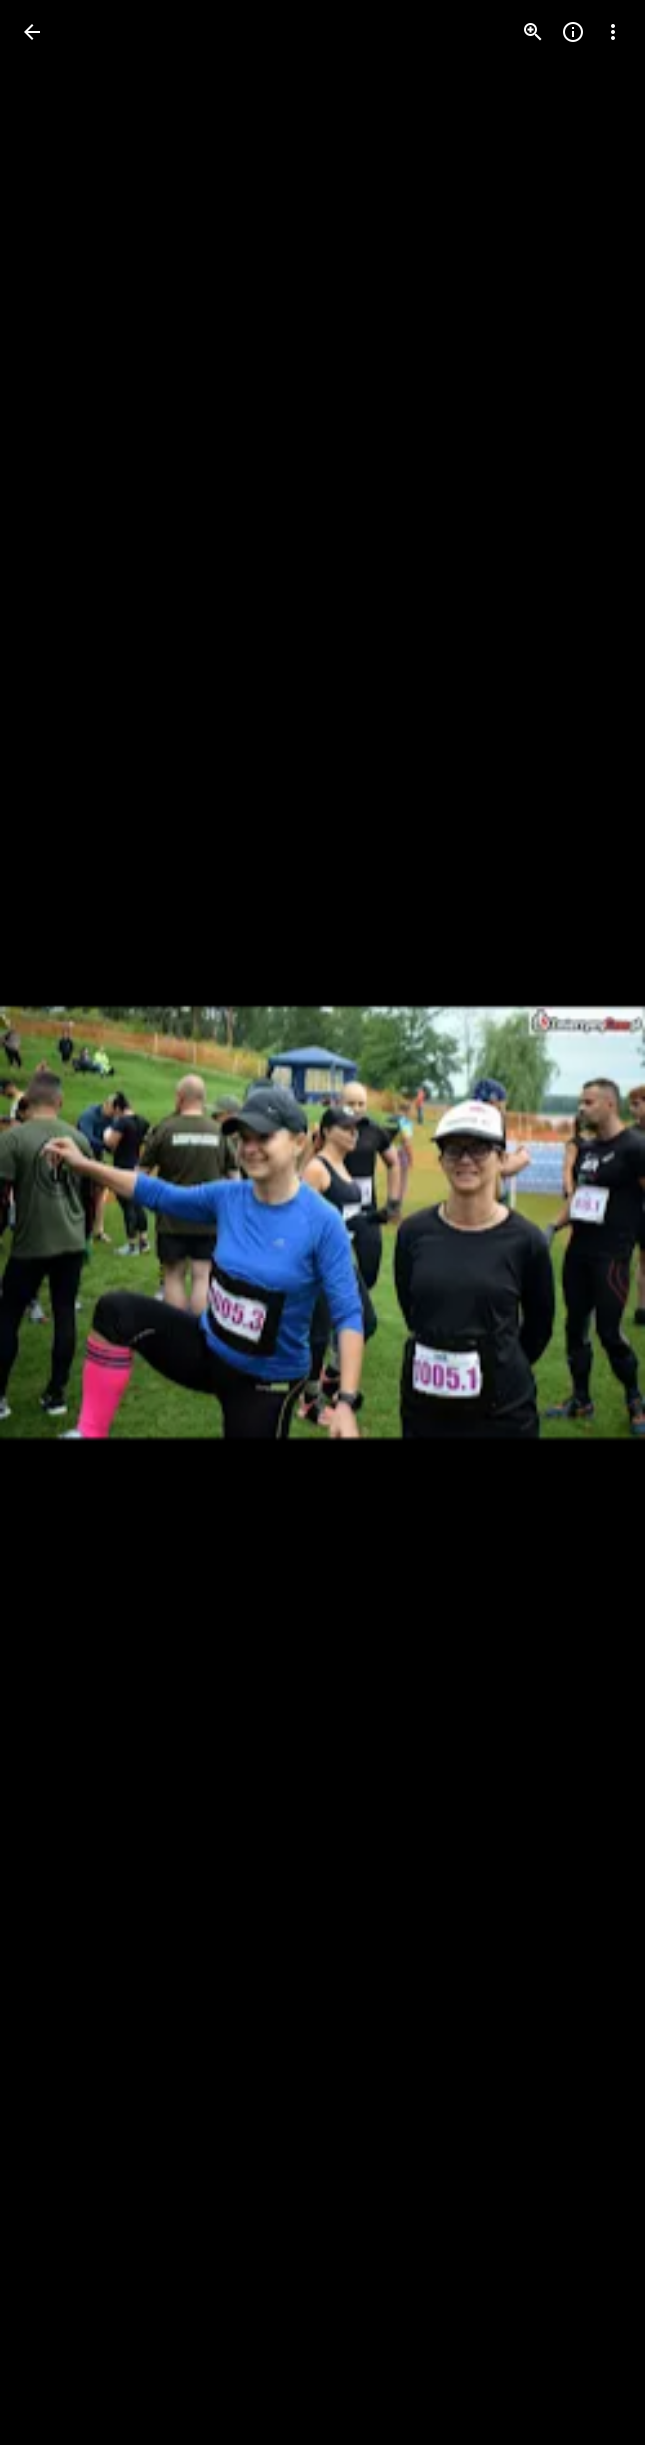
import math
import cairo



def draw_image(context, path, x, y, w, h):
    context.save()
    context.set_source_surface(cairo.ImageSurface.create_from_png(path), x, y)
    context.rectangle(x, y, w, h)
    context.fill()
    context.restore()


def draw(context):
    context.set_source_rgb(0, 0, 0)
    context.paint()
    draw_image(context, "images/1.png", 24, 24, 16, 16)
    draw_image(context, "images/2.png", 524, 23, 18, 18)
    draw_image(context, "images/3.png", 563, 22, 20, 20)
    draw_image(context, "images/4.png", 611, 24, 4, 16)
    draw_image(context, "images/5.png", 0, 1005, 645, 436)


surface = cairo.ImageSurface(cairo.Format.RGB24, 645, 2445)
context = cairo.Context(surface)
options = cairo.FontOptions()
options.set_hint_metrics(cairo.HintMetrics.OFF)
options.set_hint_style(cairo.HintStyle.NONE)
context.set_font_options(options)
context.set_miter_limit(4)
draw(context)
surface.write_to_png("out.png")
